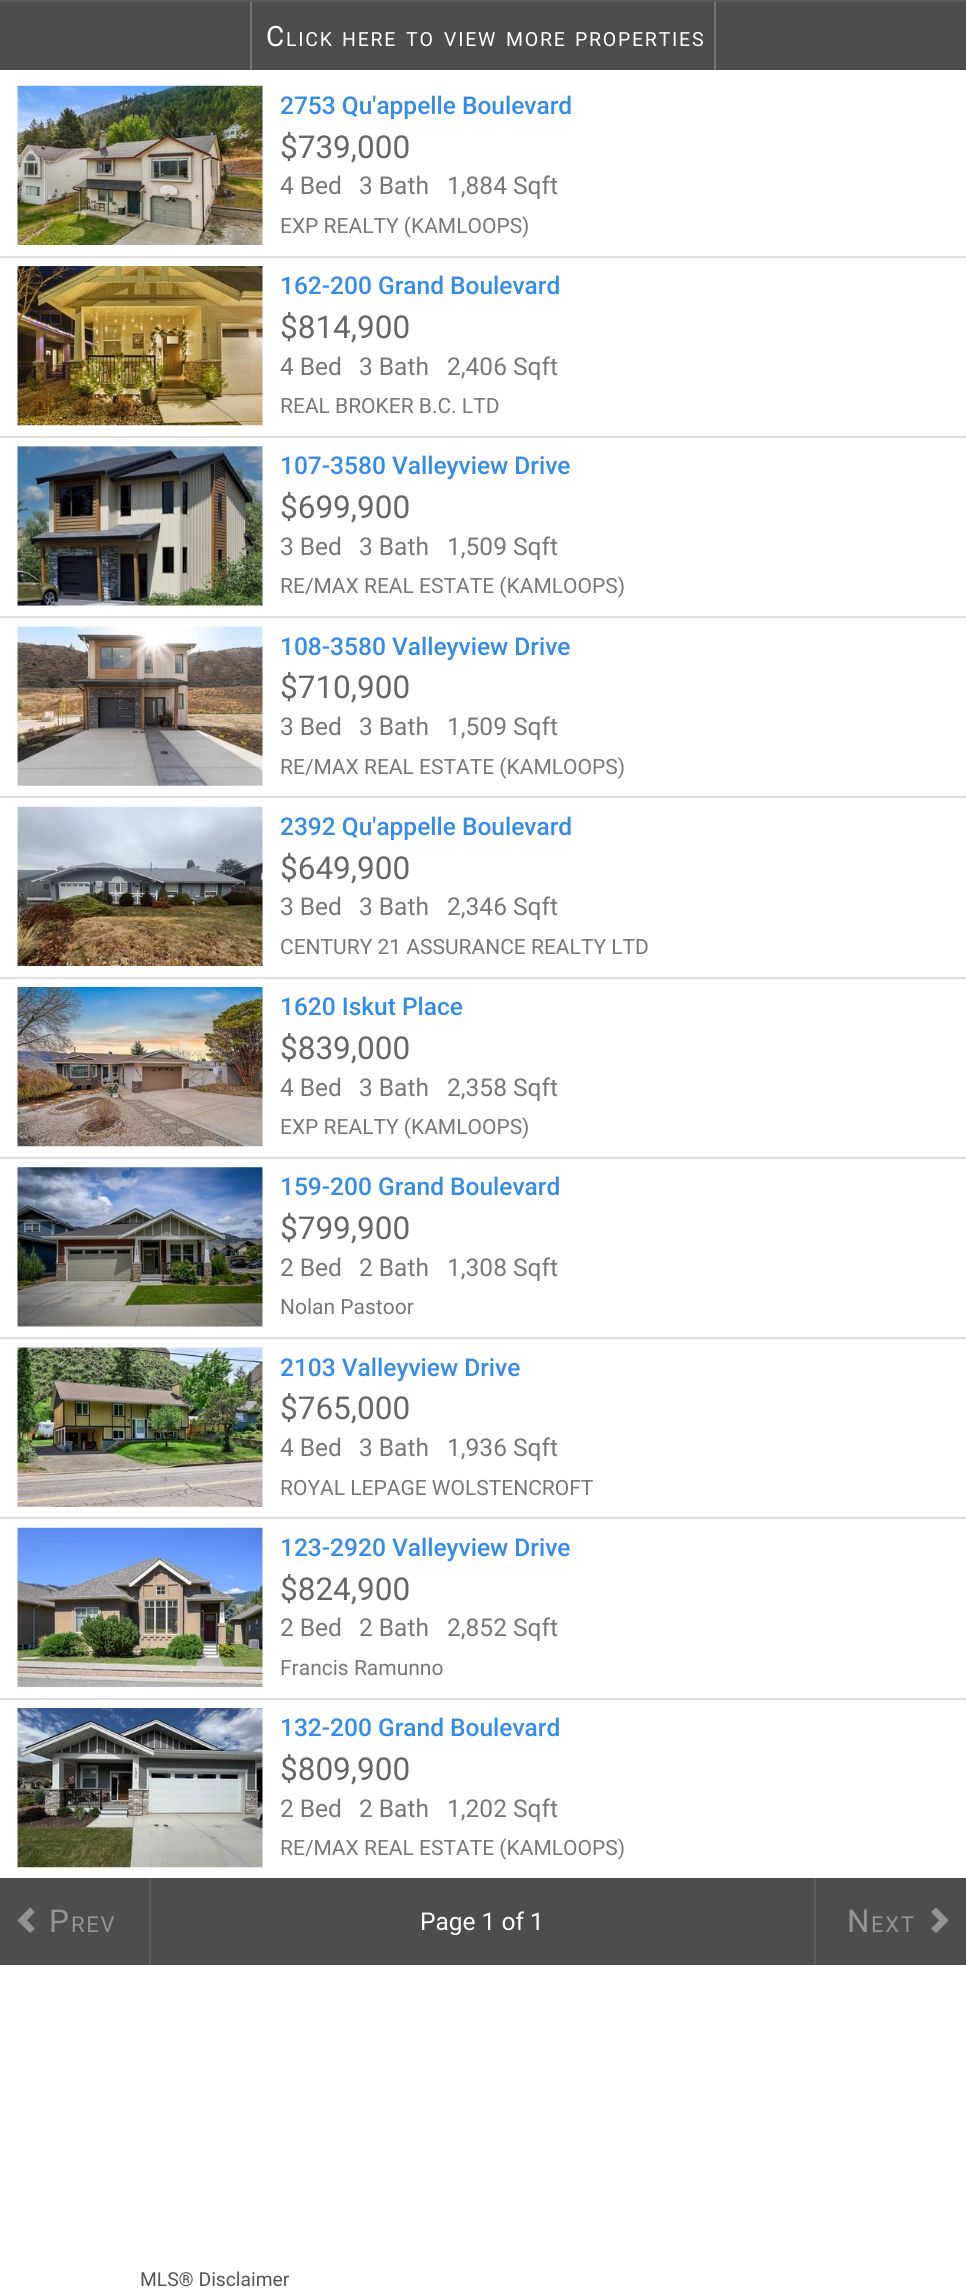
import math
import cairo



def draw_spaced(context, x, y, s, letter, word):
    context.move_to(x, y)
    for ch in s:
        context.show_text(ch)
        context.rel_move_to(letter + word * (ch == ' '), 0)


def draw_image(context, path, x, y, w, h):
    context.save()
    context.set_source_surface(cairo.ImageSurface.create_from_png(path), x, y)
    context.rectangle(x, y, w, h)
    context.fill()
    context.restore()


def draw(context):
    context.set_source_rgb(1, 1, 1)
    context.paint()
    context.set_source_rgb(77 / 255, 77 / 255, 77 / 255)
    context.rectangle(0, 2, 966, 68)
    context.fill()
    context.set_source_rgb(90 / 255, 90 / 255, 90 / 255)
    context.rectangle(0, 0, 966, 2)
    context.fill()
    context.set_source_rgb(115 / 255, 115 / 255, 115 / 255)
    context.rectangle(714, 2, 2, 68)
    context.fill()
    context.rectangle(250, 2, 2, 68)
    context.fill()
    draw_image(context, "images/1.png", 17, 85, 246, 160)
    context.set_source_rgb(224 / 255, 224 / 255, 224 / 255)
    context.rectangle(0, 256, 966, 2)
    context.fill()
    draw_image(context, "images/2.png", 17, 266, 246, 160)
    context.rectangle(0, 436, 966, 2)
    context.fill()
    draw_image(context, "images/3.png", 17, 446, 246, 160)
    context.rectangle(0, 616, 966, 2)
    context.fill()
    draw_image(context, "images/4.png", 17, 626, 246, 160)
    context.rectangle(0, 796, 966, 2)
    context.fill()
    draw_image(context, "images/5.png", 17, 806, 246, 160)
    context.rectangle(0, 977, 966, 2)
    context.fill()
    draw_image(context, "images/6.png", 17, 987, 246, 160)
    context.rectangle(0, 1157, 966, 2)
    context.fill()
    draw_image(context, "images/7.png", 17, 1167, 246, 160)
    context.rectangle(0, 1337, 966, 2)
    context.fill()
    draw_image(context, "images/8.png", 17, 1347, 246, 160)
    context.rectangle(0, 1517, 966, 2)
    context.fill()
    draw_image(context, "images/9.png", 17, 1527, 246, 160)
    context.rectangle(0, 1698, 966, 2)
    context.fill()
    draw_image(context, "images/10.png", 17, 1708, 246, 160)
    context.set_source_rgb(77 / 255, 77 / 255, 77 / 255)
    context.rectangle(0, 1878, 966, 87)
    context.fill()
    context.set_source_rgb(92 / 255, 92 / 255, 92 / 255)
    context.rectangle(149, 1878, 2, 87)
    context.fill()
    draw_image(context, "images/11.png", 17, 1907, 18, 26)
    context.rectangle(814, 1878, 2, 87)
    context.fill()
    draw_image(context, "images/12.png", 931, 1907, 18, 26)
    context.select_font_face("Roboto")
    context.set_font_size(28)
    context.set_source_rgb(1, 1, 1)
    draw_spaced(context, 266, 46, "C", 1.75, 0)
    context.set_font_size(19.5)
    draw_spaced(context, 286, 46, "LICK", 1.75, 0)
    draw_spaced(context, 342, 46, "HERE", 1.75, 0)
    draw_spaced(context, 406, 46, "TO", 1.75, 0)
    draw_spaced(context, 444, 46, "VIEW", 1.75, 0)
    draw_spaced(context, 506, 46, "MORE", 1.75, 0)
    draw_spaced(context, 575, 46, "PROPERTIES", 1.75, 0)
    context.select_font_face("Roboto Medium")
    context.set_font_size(24.5)
    context.set_source_rgb(52 / 255, 139 / 255, 233 / 255)
    context.move_to(280, 114)
    context.show_text("2753 Qu'appelle Boulevard")
    context.select_font_face("Roboto")
    context.set_font_size(31.5)
    context.set_source_rgb(102 / 255, 102 / 255, 102 / 255)
    context.move_to(280, 158)
    context.show_text("$739,000")
    context.set_font_size(24.5)
    context.set_source_rgb(119 / 255, 119 / 255, 119 / 255)
    context.move_to(280, 194)
    context.show_text("4 Bed")
    context.move_to(359, 194)
    context.show_text("3 Bath")
    context.move_to(447, 194)
    context.show_text("1,884 Sqft")
    context.set_font_size(21)
    context.move_to(280, 233)
    context.show_text("EXP REALTY (KAMLOOPS)")
    context.select_font_face("Roboto Medium")
    context.set_font_size(24.5)
    context.set_source_rgb(52 / 255, 139 / 255, 233 / 255)
    context.move_to(280, 294)
    context.show_text("162-200 Grand Boulevard")
    context.select_font_face("Roboto")
    context.set_font_size(31.5)
    context.set_source_rgb(102 / 255, 102 / 255, 102 / 255)
    context.move_to(280, 338)
    context.show_text("$814,900")
    context.set_font_size(24.5)
    context.set_source_rgb(119 / 255, 119 / 255, 119 / 255)
    context.move_to(280, 375)
    context.show_text("4 Bed")
    context.move_to(359, 375)
    context.show_text("3 Bath")
    context.move_to(447, 375)
    context.show_text("2,406 Sqft")
    context.set_font_size(21)
    context.move_to(280, 413)
    context.show_text("REAL BROKER B.C. LTD")
    context.select_font_face("Roboto Medium")
    context.set_font_size(24.5)
    context.set_source_rgb(52 / 255, 139 / 255, 233 / 255)
    context.move_to(280, 474)
    context.show_text("107-3580 Valleyview Drive")
    context.select_font_face("Roboto")
    context.set_font_size(31.5)
    context.set_source_rgb(102 / 255, 102 / 255, 102 / 255)
    context.move_to(280, 518)
    context.show_text("$699,900")
    context.set_font_size(24.5)
    context.set_source_rgb(119 / 255, 119 / 255, 119 / 255)
    context.move_to(280, 555)
    context.show_text("3 Bed")
    context.move_to(359, 555)
    context.show_text("3 Bath")
    context.move_to(447, 555)
    context.show_text("1,509 Sqft")
    context.set_font_size(21)
    context.move_to(280, 593)
    context.show_text("RE/MAX REAL ESTATE (KAMLOOPS)")
    context.select_font_face("Roboto Medium")
    context.set_font_size(24.5)
    context.set_source_rgb(52 / 255, 139 / 255, 233 / 255)
    context.move_to(280, 655)
    context.show_text("108-3580 Valleyview Drive")
    context.select_font_face("Roboto")
    context.set_font_size(31.5)
    context.set_source_rgb(102 / 255, 102 / 255, 102 / 255)
    context.move_to(280, 698)
    context.show_text("$710,900")
    context.set_font_size(24.5)
    context.set_source_rgb(119 / 255, 119 / 255, 119 / 255)
    context.move_to(280, 735)
    context.show_text("3 Bed")
    context.move_to(359, 735)
    context.show_text("3 Bath")
    context.move_to(447, 735)
    context.show_text("1,509 Sqft")
    context.set_font_size(21)
    context.move_to(280, 774)
    context.show_text("RE/MAX REAL ESTATE (KAMLOOPS)")
    context.select_font_face("Roboto Medium")
    context.set_font_size(24.5)
    context.set_source_rgb(52 / 255, 139 / 255, 233 / 255)
    context.move_to(280, 835)
    context.show_text("2392 Qu'appelle Boulevard")
    context.select_font_face("Roboto")
    context.set_font_size(31.5)
    context.set_source_rgb(102 / 255, 102 / 255, 102 / 255)
    context.move_to(280, 879)
    context.show_text("$649,900")
    context.set_font_size(24.5)
    context.set_source_rgb(119 / 255, 119 / 255, 119 / 255)
    context.move_to(280, 915)
    context.show_text("3 Bed")
    context.move_to(359, 915)
    context.show_text("3 Bath")
    context.move_to(447, 915)
    context.show_text("2,346 Sqft")
    context.set_font_size(21)
    context.move_to(280, 954)
    context.show_text("CENTURY 21 ASSURANCE REALTY LTD")
    context.select_font_face("Roboto Medium")
    context.set_font_size(24.5)
    context.set_source_rgb(52 / 255, 139 / 255, 233 / 255)
    context.move_to(280, 1015)
    context.show_text("1620 Iskut Place")
    context.select_font_face("Roboto")
    context.set_font_size(31.5)
    context.set_source_rgb(102 / 255, 102 / 255, 102 / 255)
    context.move_to(280, 1059)
    context.show_text("$839,000")
    context.set_font_size(24.5)
    context.set_source_rgb(119 / 255, 119 / 255, 119 / 255)
    context.move_to(280, 1096)
    context.show_text("4 Bed")
    context.move_to(359, 1096)
    context.show_text("3 Bath")
    context.move_to(447, 1096)
    context.show_text("2,358 Sqft")
    context.set_font_size(21)
    context.move_to(280, 1134)
    context.show_text("EXP REALTY (KAMLOOPS)")
    context.select_font_face("Roboto Medium")
    context.set_font_size(24.5)
    context.set_source_rgb(52 / 255, 139 / 255, 233 / 255)
    context.move_to(280, 1195)
    context.show_text("159-200 Grand Boulevard")
    context.select_font_face("Roboto")
    context.set_font_size(31.5)
    context.set_source_rgb(102 / 255, 102 / 255, 102 / 255)
    context.move_to(280, 1239)
    context.show_text("$799,900")
    context.set_font_size(24.5)
    context.set_source_rgb(119 / 255, 119 / 255, 119 / 255)
    context.move_to(280, 1276)
    context.show_text("2 Bed")
    context.move_to(359, 1276)
    context.show_text("2 Bath")
    context.move_to(447, 1276)
    context.show_text("1,308 Sqft")
    context.set_font_size(21)
    context.move_to(280, 1314)
    context.show_text("Nolan Pastoor")
    context.select_font_face("Roboto Medium")
    context.set_font_size(24.5)
    context.set_source_rgb(52 / 255, 139 / 255, 233 / 255)
    context.move_to(280, 1376)
    context.show_text("2103 Valleyview Drive")
    context.select_font_face("Roboto")
    context.set_font_size(31.5)
    context.set_source_rgb(102 / 255, 102 / 255, 102 / 255)
    context.move_to(280, 1419)
    context.show_text("$765,000")
    context.set_font_size(24.5)
    context.set_source_rgb(119 / 255, 119 / 255, 119 / 255)
    context.move_to(280, 1456)
    context.show_text("4 Bed")
    context.move_to(359, 1456)
    context.show_text("3 Bath")
    context.move_to(447, 1456)
    context.show_text("1,936 Sqft")
    context.set_font_size(21)
    context.move_to(280, 1495)
    context.show_text("ROYAL LEPAGE WOLSTENCROFT")
    context.select_font_face("Roboto Medium")
    context.set_font_size(24.5)
    context.set_source_rgb(52 / 255, 139 / 255, 233 / 255)
    context.move_to(280, 1556)
    context.show_text("123-2920 Valleyview Drive")
    context.select_font_face("Roboto")
    context.set_font_size(31.5)
    context.set_source_rgb(102 / 255, 102 / 255, 102 / 255)
    context.move_to(280, 1600)
    context.show_text("$824,900")
    context.set_font_size(24.5)
    context.set_source_rgb(119 / 255, 119 / 255, 119 / 255)
    context.move_to(280, 1636)
    context.show_text("2 Bed")
    context.move_to(359, 1636)
    context.show_text("2 Bath")
    context.move_to(447, 1636)
    context.show_text("2,852 Sqft")
    context.set_font_size(21)
    context.move_to(280, 1675)
    context.show_text("Francis Ramunno")
    context.select_font_face("Roboto Medium")
    context.set_font_size(24.5)
    context.set_source_rgb(52 / 255, 139 / 255, 233 / 255)
    context.move_to(280, 1736)
    context.show_text("132-200 Grand Boulevard")
    context.select_font_face("Roboto")
    context.set_font_size(31.5)
    context.set_source_rgb(102 / 255, 102 / 255, 102 / 255)
    context.move_to(280, 1780)
    context.show_text("$809,900")
    context.set_font_size(24.5)
    context.set_source_rgb(119 / 255, 119 / 255, 119 / 255)
    context.move_to(280, 1817)
    context.show_text("2 Bed")
    context.move_to(359, 1817)
    context.show_text("2 Bath")
    context.move_to(447, 1817)
    context.show_text("1,202 Sqft")
    context.set_font_size(21)
    context.move_to(280, 1855)
    context.show_text("RE/MAX REAL ESTATE (KAMLOOPS)")
    context.set_font_size(31.5)
    context.set_source_rgb(148 / 255, 148 / 255, 148 / 255)
    draw_spaced(context, 49, 1932, "P", 1.75, 0)
    context.set_font_size(22)
    draw_spaced(context, 71, 1932, "REV", 1.75, 0)
    context.set_font_size(24.5)
    context.set_source_rgb(1, 1, 1)
    context.move_to(420, 1930)
    context.show_text("Page 1 of 1")
    context.set_font_size(31.5)
    context.set_source_rgb(148 / 255, 148 / 255, 148 / 255)
    draw_spaced(context, 847, 1932, "N", 1.75, 0)
    context.set_font_size(22)
    draw_spaced(context, 871, 1932, "EXT", 1.75, 0)
    context.set_font_size(19.25)
    context.set_source_rgb(85 / 255, 85 / 255, 85 / 255)
    context.move_to(140, 2286)
    context.show_text("MLS® Disclaimer")


surface = cairo.ImageSurface(cairo.Format.RGB24, 966, 2296)
context = cairo.Context(surface)
options = cairo.FontOptions()
options.set_hint_metrics(cairo.HintMetrics.OFF)
options.set_hint_style(cairo.HintStyle.NONE)
context.set_font_options(options)
context.set_miter_limit(4)
draw(context)
surface.write_to_png("out.png")
